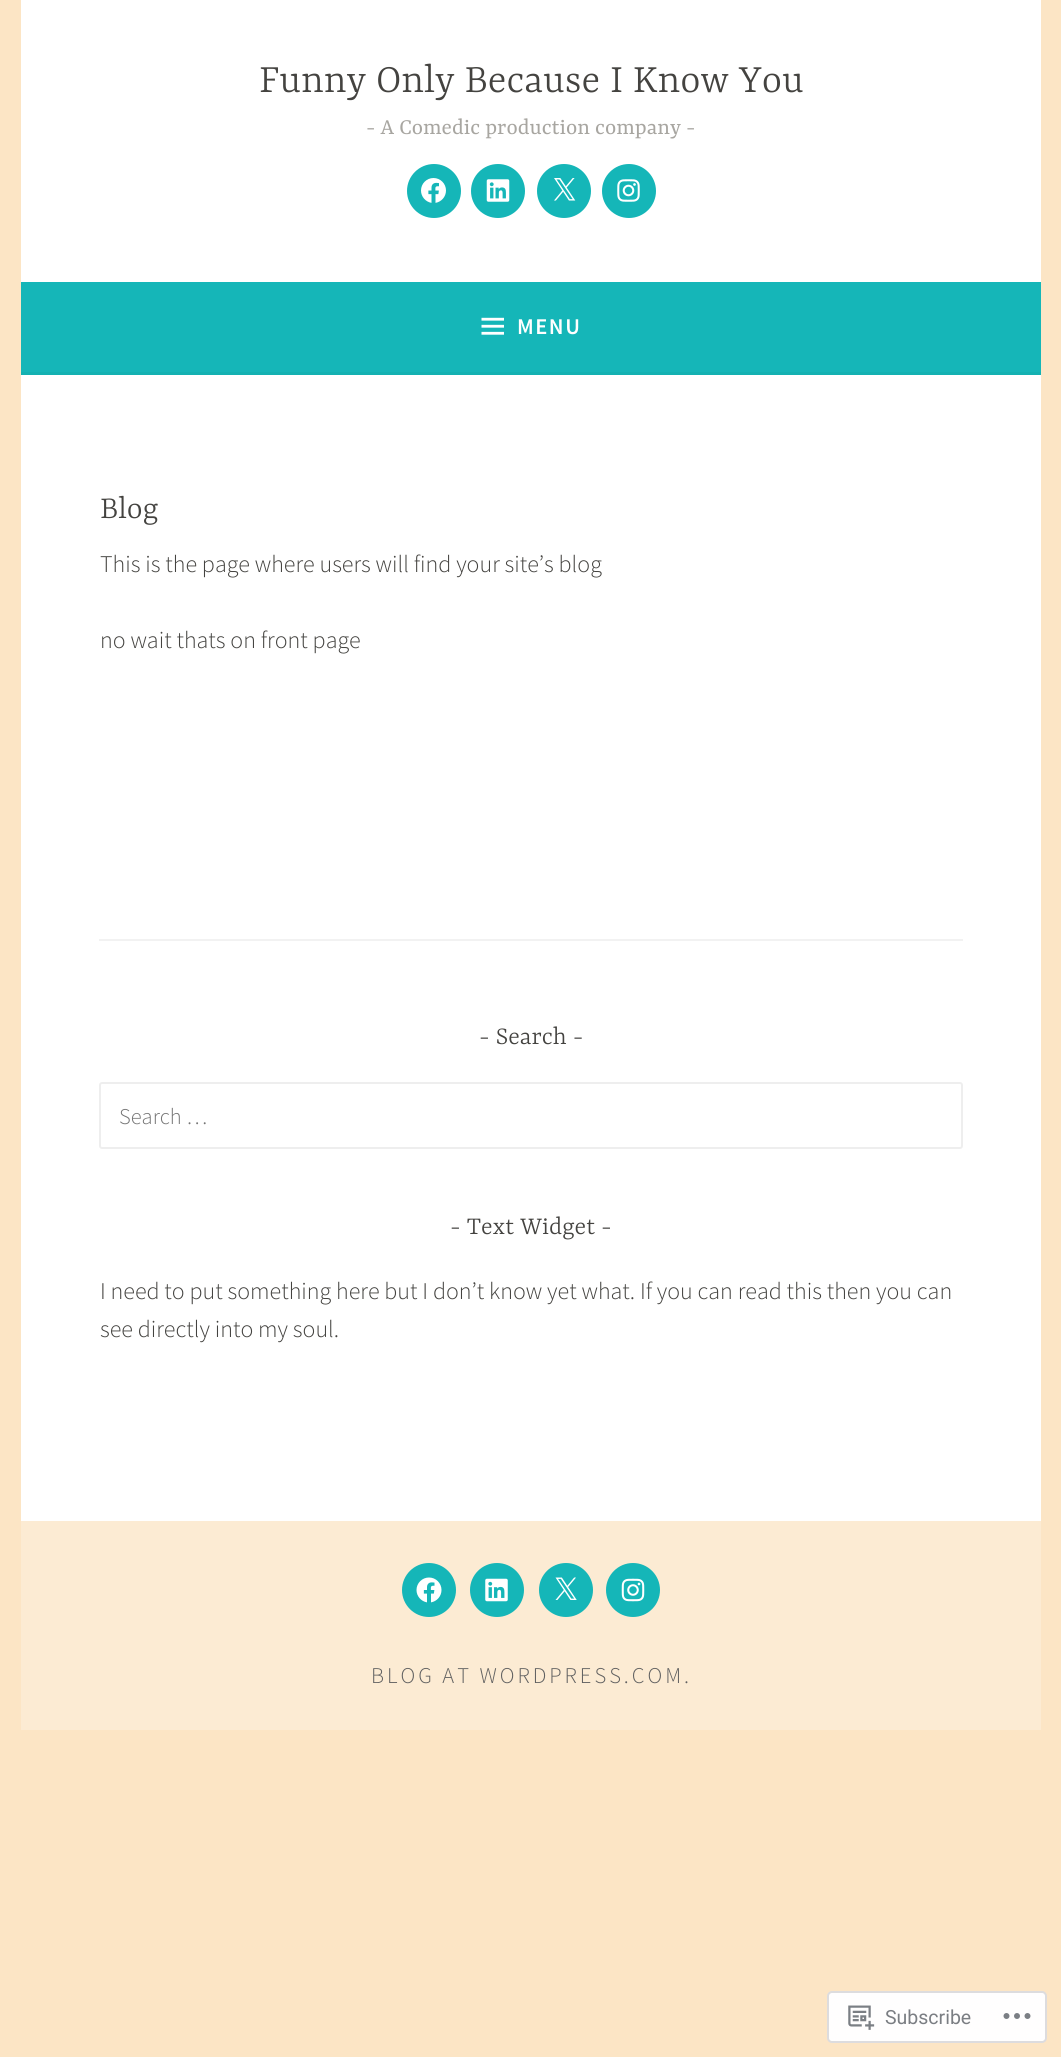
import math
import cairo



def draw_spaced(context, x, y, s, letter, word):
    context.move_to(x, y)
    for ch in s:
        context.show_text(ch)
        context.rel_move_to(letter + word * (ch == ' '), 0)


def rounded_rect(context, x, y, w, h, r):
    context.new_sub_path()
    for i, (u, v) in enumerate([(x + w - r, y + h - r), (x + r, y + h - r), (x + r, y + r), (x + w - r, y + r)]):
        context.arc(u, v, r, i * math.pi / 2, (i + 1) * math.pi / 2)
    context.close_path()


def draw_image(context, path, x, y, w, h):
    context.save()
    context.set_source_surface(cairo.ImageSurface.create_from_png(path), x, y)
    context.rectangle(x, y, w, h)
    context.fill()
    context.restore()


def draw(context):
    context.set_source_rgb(252 / 255, 229 / 255, 197 / 255)
    context.paint()
    context.set_source_rgb(1, 1, 1)
    context.rectangle(21, 0, 1020, 282)
    context.fill()
    context.set_source_rgb(21 / 255, 182 / 255, 184 / 255)
    context.arc(434, 191, 27, 0, 2 * math.pi)
    context.fill()
    draw_image(context, "images/1.png", 421, 178, 25, 25)
    context.arc(498, 191, 27, 0, 2 * math.pi)
    context.fill()
    draw_image(context, "images/2.png", 486, 179, 24, 23)
    context.arc(564, 191, 27, 0, 2 * math.pi)
    context.fill()
    draw_image(context, "images/3.png", 554, 178, 22, 23)
    context.arc(629, 191, 27, 0, 2 * math.pi)
    context.fill()
    draw_image(context, "images/4.png", 617, 179, 23, 23)
    context.rectangle(21, 282, 1020, 90)
    context.fill()
    context.set_source_rgb(20 / 255, 177 / 255, 178 / 255)
    context.rectangle(21, 372, 1020, 3)
    context.fill()
    draw_image(context, "images/5.png", 481, 317, 23, 18)
    context.set_source_rgb(1, 1, 1)
    context.rectangle(21, 375, 1020, 1146)
    context.fill()
    context.set_source_rgb(242 / 255, 242 / 255, 242 / 255)
    context.rectangle(99, 939, 864, 2)
    context.fill()
    rounded_rect(context, 100, 1083, 862, 65, 2)
    context.set_source_rgb(238 / 255, 238 / 255, 238 / 255)
    context.stroke()
    context.set_source_rgb(252 / 255, 235 / 255, 211 / 255)
    context.rectangle(21, 1521, 1020, 209)
    context.fill()
    context.set_source_rgb(21 / 255, 182 / 255, 184 / 255)
    context.arc(429, 1590, 27, 0, 2 * math.pi)
    context.fill()
    draw_image(context, "images/6.png", 416, 1577, 26, 26)
    context.arc(497, 1590, 27, 0, 2 * math.pi)
    context.fill()
    draw_image(context, "images/7.png", 485, 1578, 23, 24)
    context.arc(566, 1590, 27, 0, 2 * math.pi)
    context.fill()
    draw_image(context, "images/8.png", 555, 1577, 22, 23)
    context.arc(633, 1590, 27, 0, 2 * math.pi)
    context.fill()
    draw_image(context, "images/9.png", 621, 1578, 24, 24)
    context.set_source_rgb(1, 254 / 255, 254 / 255)
    rounded_rect(context, 828, 1992, 218, 50, 4)
    context.fill_preserve()
    context.set_source_rgb(221 / 255, 220 / 255, 222 / 255)
    context.stroke()
    draw_image(context, "images/10.png", 848, 2005, 27, 25)
    draw_image(context, "images/11.png", 1003, 2013, 28, 6)
    context.select_font_face("Yrsa Light")
    context.set_font_size(43.5)
    context.set_source_rgb(68 / 255, 67 / 255, 64 / 255)
    context.move_to(259, 92)
    context.show_text("Funny Only Because I Know You")
    context.select_font_face("Yrsa")
    context.set_font_size(24)
    context.set_source_rgb(168 / 255, 166 / 255, 161 / 255)
    context.move_to(366, 134)
    context.show_text("- A Comedic production company -")
    context.select_font_face("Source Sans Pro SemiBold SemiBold")
    context.set_font_size(22.5)
    context.set_source_rgb(1, 1, 1)
    draw_spaced(context, 517, 334, "MENU", 1.5, 0)
    context.select_font_face("Yrsa Light")
    context.set_font_size(34)
    context.set_source_rgb(68 / 255, 67 / 255, 64 / 255)
    context.move_to(100, 518)
    context.show_text("Blog")
    context.select_font_face("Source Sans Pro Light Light")
    context.set_font_size(24)
    context.move_to(100, 572)
    context.show_text("This is the page where users will find your site’s blog")
    context.move_to(100, 648)
    context.show_text("no wait thats on front page")
    context.select_font_face("Yrsa Light")
    context.set_font_size(27)
    context.move_to(479, 1044)
    context.show_text("- Search -")
    context.select_font_face("Source Sans Pro Light Light")
    context.set_font_size(22.5)
    context.set_source_rgb(117 / 255, 117 / 255, 117 / 255)
    context.move_to(119, 1124)
    context.show_text("Search …")
    context.select_font_face("Yrsa Light")
    context.set_font_size(27)
    context.set_source_rgb(68 / 255, 67 / 255, 64 / 255)
    context.move_to(450, 1234)
    context.show_text("- Text Widget -")
    context.select_font_face("Source Sans Pro Light Light")
    context.set_font_size(24)
    context.move_to(100, 1299)
    context.show_text("I need to put something here but I don’t know yet what. If you can read this then you can")
    context.move_to(100, 1337)
    context.show_text("see directly into my soul.")
    context.set_font_size(22.5)
    context.set_source_rgb(96 / 255, 96 / 255, 96 / 255)
    draw_spaced(context, 371, 1683, "BLOG AT WORDPRESS.COM.", 3, 0)
    context.select_font_face("Roboto")
    context.set_font_size(19.5)
    context.set_source_rgb(123 / 255, 126 / 255, 131 / 255)
    context.move_to(885, 2024)
    context.show_text("Subscribe")


surface = cairo.ImageSurface(cairo.Format.RGB24, 1061, 2057)
context = cairo.Context(surface)
options = cairo.FontOptions()
options.set_hint_metrics(cairo.HintMetrics.OFF)
options.set_hint_style(cairo.HintStyle.NONE)
context.set_font_options(options)
context.set_miter_limit(4)
draw(context)
surface.write_to_png("out.png")
